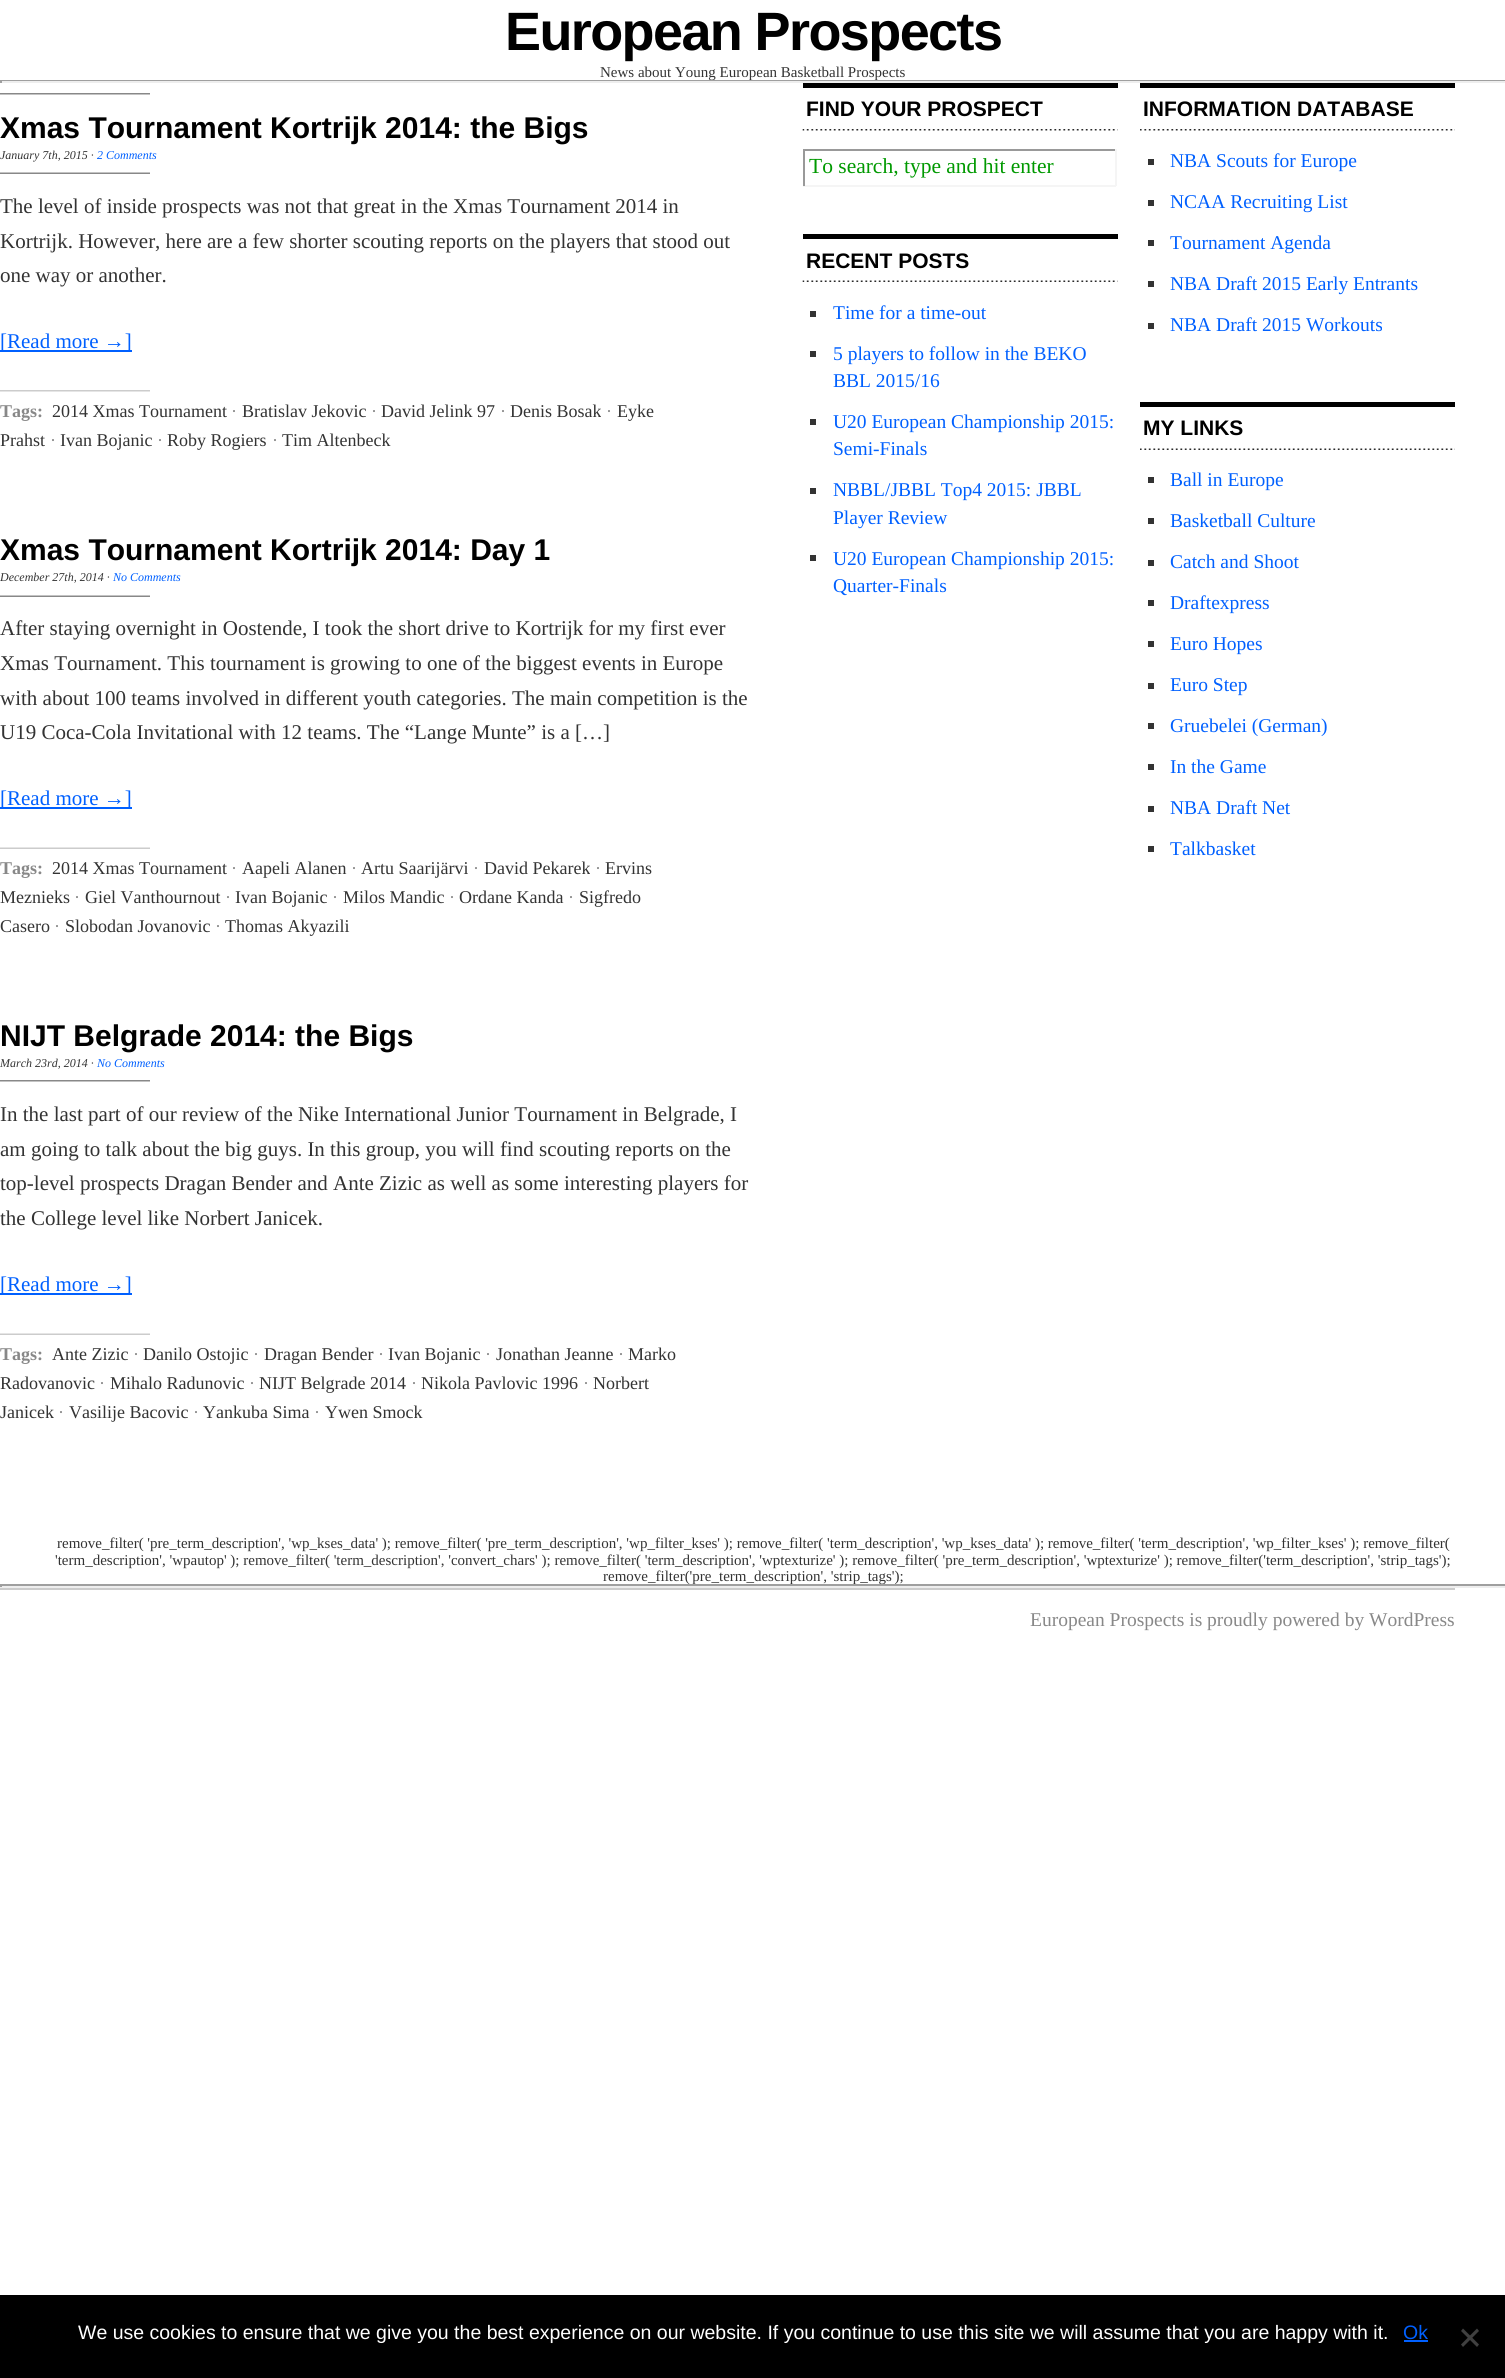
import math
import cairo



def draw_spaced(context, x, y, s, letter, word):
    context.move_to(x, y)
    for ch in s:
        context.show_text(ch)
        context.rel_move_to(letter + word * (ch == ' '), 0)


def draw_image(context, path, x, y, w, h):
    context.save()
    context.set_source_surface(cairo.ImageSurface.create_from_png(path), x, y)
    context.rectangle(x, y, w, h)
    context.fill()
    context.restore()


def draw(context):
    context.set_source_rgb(1, 1, 1)
    context.paint()
    context.set_source_rgb(238 / 255, 238 / 255, 238 / 255)
    context.rectangle(0, 81, 1505, 2)
    context.fill()
    draw_image(context, "images/1.png", 0, 93, 150, 2)
    draw_image(context, "images/2.png", 0, 172, 150, 2)
    context.set_source_rgb(0, 96 / 255, 1)
    context.rectangle(0, 350, 132, 2)
    context.fill()
    draw_image(context, "images/3.png", 0, 390, 150, 2)
    draw_image(context, "images/2.png", 0, 595, 150, 2)
    context.rectangle(0, 807, 132, 2)
    context.fill()
    draw_image(context, "images/4.png", 0, 847, 150, 2)
    draw_image(context, "images/1.png", 0, 1080, 150, 2)
    context.rectangle(0, 1293, 132, 2)
    context.fill()
    draw_image(context, "images/4.png", 0, 1333, 150, 2)
    draw_image(context, "images/5.png", 802, 129, 316, 2)
    context.set_source_rgb(0, 0, 0)
    context.rectangle(803, 83, 315, 5)
    context.fill()
    context.set_source_rgb(153 / 255, 153 / 255, 153 / 255)
    context.rectangle(803, 149, 313, 2)
    context.fill()
    context.set_source_rgb(245 / 255, 245 / 255, 245 / 255)
    context.rectangle(1115, 149, 2, 37)
    context.fill()
    context.rectangle(803, 185, 313, 2)
    context.fill()
    context.set_source_rgb(153 / 255, 153 / 255, 153 / 255)
    context.rectangle(803, 149, 2, 37)
    context.fill()
    draw_image(context, "images/6.png", 802, 280, 316, 2)
    context.set_source_rgb(0, 0, 0)
    context.rectangle(803, 234, 315, 5)
    context.fill()
    context.set_source_rgb(51 / 255, 51 / 255, 51 / 255)
    context.rectangle(810, 311, 6, 6)
    context.fill()
    context.rectangle(810, 351, 6, 6)
    context.fill()
    context.rectangle(810, 419, 6, 6)
    context.fill()
    context.rectangle(810, 488, 6, 6)
    context.fill()
    context.rectangle(810, 555, 6, 6)
    context.fill()
    draw_image(context, "images/7.png", 1140, 129, 315, 2)
    context.set_source_rgb(0, 0, 0)
    context.rectangle(1140, 83, 315, 5)
    context.fill()
    context.set_source_rgb(51 / 255, 51 / 255, 51 / 255)
    context.rectangle(1148, 159, 6, 6)
    context.fill()
    context.rectangle(1148, 200, 6, 6)
    context.fill()
    context.rectangle(1148, 240, 6, 6)
    context.fill()
    context.rectangle(1148, 281, 6, 6)
    context.fill()
    context.rectangle(1148, 323, 6, 6)
    context.fill()
    draw_image(context, "images/8.png", 1140, 448, 315, 2)
    context.set_source_rgb(0, 0, 0)
    context.rectangle(1140, 402, 315, 5)
    context.fill()
    context.set_source_rgb(51 / 255, 51 / 255, 51 / 255)
    context.rectangle(1148, 477, 6, 6)
    context.fill()
    context.rectangle(1148, 518, 6, 6)
    context.fill()
    context.rectangle(1148, 560, 6, 6)
    context.fill()
    context.rectangle(1148, 600, 6, 6)
    context.fill()
    context.rectangle(1148, 641, 6, 6)
    context.fill()
    context.rectangle(1148, 683, 6, 6)
    context.fill()
    context.rectangle(1148, 723, 6, 6)
    context.fill()
    context.rectangle(1148, 764, 6, 6)
    context.fill()
    context.rectangle(1148, 806, 6, 6)
    context.fill()
    context.rectangle(1148, 846, 6, 6)
    context.fill()
    context.set_source_rgb(238 / 255, 238 / 255, 238 / 255)
    context.rectangle(0, 1586, 1505, 2)
    context.fill()
    context.set_source_rgb(204 / 255, 204 / 255, 204 / 255)
    context.rectangle(0, 1588, 1455, 2)
    context.fill()
    context.set_source_rgb(0, 0, 0)
    context.rectangle(0, 2295, 1505, 83)
    context.fill()
    context.set_source_rgb(0, 96 / 255, 1)
    context.rectangle(1404, 2340, 24, 2)
    context.fill()
    context.set_source_rgb(64 / 255, 64 / 255, 64 / 255)
    context.new_path()
    context.move_to(1477, 2328.5)
    context.line_to(1479, 2331)
    context.line_to(1463, 2347)
    context.line_to(1461, 2344.5)
    context.close_path()
    context.fill()
    context.new_path()
    context.move_to(1461, 2331)
    context.line_to(1463, 2328.5)
    context.line_to(1479, 2344.5)
    context.line_to(1477, 2347)
    context.close_path()
    context.fill()
    context.select_font_face("Liberation Sans", cairo.FontSlant.NORMAL, cairo.FontWeight.BOLD)
    context.set_font_size(54)
    context.set_source_rgb(0, 0, 0)
    draw_spaced(context, 505, 50, "European Prospects", -1.6, 0)
    context.select_font_face("Liberation Serif")
    context.set_font_size(15)
    context.set_source_rgb(51 / 255, 51 / 255, 51 / 255)
    context.move_to(600, 77)
    context.show_text("News about Young European Basketball Prospects")
    context.set_source_rgb(159 / 255, 159 / 255, 159 / 255)
    context.rectangle(0, 80, 1505, 1)
    context.fill()
    context.rectangle(0, 80, 2, 3)
    context.fill()
    context.select_font_face("Liberation Sans", cairo.FontSlant.NORMAL, cairo.FontWeight.BOLD)
    context.set_font_size(30)
    context.set_source_rgb(0, 0, 0)
    context.move_to(0, 138)
    context.show_text("Xmas Tournament Kortrijk 2014: the Bigs")
    context.select_font_face("Liberation Serif", cairo.FontSlant.ITALIC)
    context.set_font_size(12)
    context.set_source_rgb(51 / 255, 51 / 255, 51 / 255)
    context.move_to(0, 159)
    context.show_text("January 7th, 2015 ·")
    context.set_source_rgb(0, 96 / 255, 1)
    context.move_to(97, 159)
    context.show_text("2 Comments")
    context.select_font_face("Liberation Serif")
    context.set_font_size(21)
    context.set_source_rgb(51 / 255, 51 / 255, 51 / 255)
    context.move_to(0, 213)
    context.show_text("The level of inside prospects was not that great in the Xmas Tournament 2014 in")
    context.move_to(0, 248)
    context.show_text("Kortrijk. However, here are a few shorter scouting reports on the players that stood out")
    context.move_to(0, 282)
    context.show_text("one way or another.")
    context.set_source_rgb(0, 96 / 255, 1)
    context.move_to(0, 348)
    context.show_text("[Read more →]")
    context.select_font_face("Liberation Serif", cairo.FontSlant.NORMAL, cairo.FontWeight.BOLD)
    context.set_font_size(18)
    context.set_source_rgb(136 / 255, 136 / 255, 136 / 255)
    context.move_to(0, 417)
    context.show_text("Tags:")
    context.select_font_face("Liberation Serif")
    context.set_source_rgb(51 / 255, 51 / 255, 51 / 255)
    context.move_to(52, 417)
    context.show_text("2014 Xmas Tournament")
    context.set_source_rgb(136 / 255, 136 / 255, 136 / 255)
    context.move_to(231, 417)
    context.show_text("·")
    context.set_source_rgb(51 / 255, 51 / 255, 51 / 255)
    context.move_to(242, 417)
    context.show_text("Bratislav Jekovic")
    context.set_source_rgb(136 / 255, 136 / 255, 136 / 255)
    context.move_to(371, 417)
    context.show_text("·")
    context.set_source_rgb(51 / 255, 51 / 255, 51 / 255)
    context.move_to(381, 417)
    context.show_text("David Jelink 97")
    context.set_source_rgb(136 / 255, 136 / 255, 136 / 255)
    context.move_to(500, 417)
    context.show_text("·")
    context.set_source_rgb(51 / 255, 51 / 255, 51 / 255)
    context.move_to(510, 417)
    context.show_text("Denis Bosak")
    context.set_source_rgb(136 / 255, 136 / 255, 136 / 255)
    context.move_to(606, 417)
    context.show_text("·")
    context.set_source_rgb(51 / 255, 51 / 255, 51 / 255)
    context.move_to(617, 417)
    context.show_text("Eyke")
    context.move_to(0, 446)
    context.show_text("Prahst")
    context.set_source_rgb(136 / 255, 136 / 255, 136 / 255)
    context.move_to(50, 446)
    context.show_text("·")
    context.set_source_rgb(51 / 255, 51 / 255, 51 / 255)
    context.move_to(60, 446)
    context.show_text("Ivan Bojanic")
    context.set_source_rgb(136 / 255, 136 / 255, 136 / 255)
    context.move_to(157, 446)
    context.show_text("·")
    context.set_source_rgb(51 / 255, 51 / 255, 51 / 255)
    context.move_to(167, 446)
    context.show_text("Roby Rogiers")
    context.set_source_rgb(136 / 255, 136 / 255, 136 / 255)
    context.move_to(272, 446)
    context.show_text("·")
    context.set_source_rgb(51 / 255, 51 / 255, 51 / 255)
    context.move_to(282, 446)
    context.show_text("Tim Altenbeck")
    context.select_font_face("Liberation Sans", cairo.FontSlant.NORMAL, cairo.FontWeight.BOLD)
    context.set_font_size(30)
    context.set_source_rgb(0, 0, 0)
    context.move_to(0, 560)
    context.show_text("Xmas Tournament Kortrijk 2014: Day 1")
    context.select_font_face("Liberation Serif", cairo.FontSlant.ITALIC)
    context.set_font_size(12)
    context.set_source_rgb(51 / 255, 51 / 255, 51 / 255)
    context.move_to(0, 581)
    context.show_text("December 27th, 2014 ·")
    context.set_source_rgb(0, 96 / 255, 1)
    context.move_to(113, 581)
    context.show_text("No Comments")
    context.select_font_face("Liberation Serif")
    context.set_font_size(21)
    context.set_source_rgb(51 / 255, 51 / 255, 51 / 255)
    context.move_to(0, 635)
    context.show_text("After staying overnight in Oostende, I took the short drive to Kortrijk for my first ever")
    context.move_to(0, 670)
    context.show_text("Xmas Tournament. This tournament is growing to one of the biggest events in Europe")
    context.move_to(0, 705)
    context.show_text("with about 100 teams involved in different youth categories. The main competition is the")
    context.move_to(0, 739)
    context.show_text("U19 Coca-Cola Invitational with 12 teams. The “Lange Munte” is a […]")
    context.set_source_rgb(0, 96 / 255, 1)
    context.move_to(0, 805)
    context.show_text("[Read more →]")
    context.select_font_face("Liberation Serif", cairo.FontSlant.NORMAL, cairo.FontWeight.BOLD)
    context.set_font_size(18)
    context.set_source_rgb(136 / 255, 136 / 255, 136 / 255)
    context.move_to(0, 874)
    context.show_text("Tags:")
    context.select_font_face("Liberation Serif")
    context.set_source_rgb(51 / 255, 51 / 255, 51 / 255)
    context.move_to(52, 874)
    context.show_text("2014 Xmas Tournament")
    context.set_source_rgb(136 / 255, 136 / 255, 136 / 255)
    context.move_to(231, 874)
    context.show_text("·")
    context.set_source_rgb(51 / 255, 51 / 255, 51 / 255)
    context.move_to(242, 874)
    context.show_text("Aapeli Alanen")
    context.set_source_rgb(136 / 255, 136 / 255, 136 / 255)
    context.move_to(351, 874)
    context.show_text("·")
    context.set_source_rgb(51 / 255, 51 / 255, 51 / 255)
    context.move_to(361, 874)
    context.show_text("Artu Saarijärvi")
    context.set_source_rgb(136 / 255, 136 / 255, 136 / 255)
    context.move_to(473, 874)
    context.show_text("·")
    context.set_source_rgb(51 / 255, 51 / 255, 51 / 255)
    context.move_to(484, 874)
    context.show_text("David Pekarek")
    context.set_source_rgb(136 / 255, 136 / 255, 136 / 255)
    context.move_to(595, 874)
    context.show_text("·")
    context.set_source_rgb(51 / 255, 51 / 255, 51 / 255)
    context.move_to(605, 874)
    context.show_text("Ervins")
    context.move_to(0, 903)
    context.show_text("Meznieks")
    context.set_source_rgb(136 / 255, 136 / 255, 136 / 255)
    context.move_to(74, 903)
    context.show_text("·")
    context.set_source_rgb(51 / 255, 51 / 255, 51 / 255)
    context.move_to(85, 903)
    context.show_text("Giel Vanthournout")
    context.set_source_rgb(136 / 255, 136 / 255, 136 / 255)
    context.move_to(225, 903)
    context.show_text("·")
    context.set_source_rgb(51 / 255, 51 / 255, 51 / 255)
    context.move_to(235, 903)
    context.show_text("Ivan Bojanic")
    context.set_source_rgb(136 / 255, 136 / 255, 136 / 255)
    context.move_to(332, 903)
    context.show_text("·")
    context.set_source_rgb(51 / 255, 51 / 255, 51 / 255)
    context.move_to(343, 903)
    context.show_text("Milos Mandic")
    context.set_source_rgb(136 / 255, 136 / 255, 136 / 255)
    context.move_to(449, 903)
    context.show_text("·")
    context.set_source_rgb(51 / 255, 51 / 255, 51 / 255)
    context.move_to(459, 903)
    context.show_text("Ordane Kanda")
    context.set_source_rgb(136 / 255, 136 / 255, 136 / 255)
    context.move_to(568, 903)
    context.show_text("·")
    context.set_source_rgb(51 / 255, 51 / 255, 51 / 255)
    context.move_to(579, 903)
    context.show_text("Sigfredo")
    context.move_to(0, 932)
    context.show_text("Casero")
    context.set_source_rgb(136 / 255, 136 / 255, 136 / 255)
    context.move_to(54, 932)
    context.show_text("·")
    context.set_source_rgb(51 / 255, 51 / 255, 51 / 255)
    context.move_to(65, 932)
    context.show_text("Slobodan Jovanovic")
    context.set_source_rgb(136 / 255, 136 / 255, 136 / 255)
    context.move_to(215, 932)
    context.show_text("·")
    context.set_source_rgb(51 / 255, 51 / 255, 51 / 255)
    context.move_to(225, 932)
    context.show_text("Thomas Akyazili")
    context.select_font_face("Liberation Sans", cairo.FontSlant.NORMAL, cairo.FontWeight.BOLD)
    context.set_font_size(30)
    context.set_source_rgb(0, 0, 0)
    context.move_to(0, 1046)
    context.show_text("NIJT Belgrade 2014: the Bigs")
    context.select_font_face("Liberation Serif", cairo.FontSlant.ITALIC)
    context.set_font_size(12)
    context.set_source_rgb(51 / 255, 51 / 255, 51 / 255)
    context.move_to(0, 1067)
    context.show_text("March 23rd, 2014 ·")
    context.set_source_rgb(0, 96 / 255, 1)
    context.move_to(97, 1067)
    context.show_text("No Comments")
    context.select_font_face("Liberation Serif")
    context.set_font_size(21)
    context.set_source_rgb(51 / 255, 51 / 255, 51 / 255)
    context.move_to(0, 1121)
    context.show_text("In the last part of our review of the Nike International Junior Tournament in Belgrade, I")
    context.move_to(0, 1156)
    context.show_text("am going to talk about the big guys. In this group, you will find scouting reports on the")
    context.move_to(0, 1190)
    context.show_text("top-level prospects Dragan Bender and Ante Zizic as well as some interesting players for")
    context.move_to(0, 1225)
    context.show_text("the College level like Norbert Janicek.")
    context.set_source_rgb(0, 96 / 255, 1)
    context.move_to(0, 1291)
    context.show_text("[Read more →]")
    context.select_font_face("Liberation Serif", cairo.FontSlant.NORMAL, cairo.FontWeight.BOLD)
    context.set_font_size(18)
    context.set_source_rgb(136 / 255, 136 / 255, 136 / 255)
    context.move_to(0, 1360)
    context.show_text("Tags:")
    context.select_font_face("Liberation Serif")
    context.set_source_rgb(51 / 255, 51 / 255, 51 / 255)
    context.move_to(52, 1360)
    context.show_text("Ante Zizic")
    context.set_source_rgb(136 / 255, 136 / 255, 136 / 255)
    context.move_to(133, 1360)
    context.show_text("·")
    context.set_source_rgb(51 / 255, 51 / 255, 51 / 255)
    context.move_to(143, 1360)
    context.show_text("Danilo Ostojic")
    context.set_source_rgb(136 / 255, 136 / 255, 136 / 255)
    context.move_to(253, 1360)
    context.show_text("·")
    context.set_source_rgb(51 / 255, 51 / 255, 51 / 255)
    context.move_to(264, 1360)
    context.show_text("Dragan Bender")
    context.set_source_rgb(136 / 255, 136 / 255, 136 / 255)
    context.move_to(378, 1360)
    context.show_text("·")
    context.set_source_rgb(51 / 255, 51 / 255, 51 / 255)
    context.move_to(388, 1360)
    context.show_text("Ivan Bojanic")
    context.set_source_rgb(136 / 255, 136 / 255, 136 / 255)
    context.move_to(485, 1360)
    context.show_text("·")
    context.set_source_rgb(51 / 255, 51 / 255, 51 / 255)
    context.move_to(496, 1360)
    context.show_text("Jonathan Jeanne")
    context.set_source_rgb(136 / 255, 136 / 255, 136 / 255)
    context.move_to(618, 1360)
    context.show_text("·")
    context.set_source_rgb(51 / 255, 51 / 255, 51 / 255)
    context.move_to(628, 1360)
    context.show_text("Marko")
    context.move_to(0, 1389)
    context.show_text("Radovanovic")
    context.set_source_rgb(136 / 255, 136 / 255, 136 / 255)
    context.move_to(99, 1389)
    context.show_text("·")
    context.set_source_rgb(51 / 255, 51 / 255, 51 / 255)
    context.move_to(110, 1389)
    context.show_text("Mihalo Radunovic")
    context.set_source_rgb(136 / 255, 136 / 255, 136 / 255)
    context.move_to(249, 1389)
    context.show_text("·")
    context.set_source_rgb(51 / 255, 51 / 255, 51 / 255)
    context.move_to(259, 1389)
    context.show_text("NIJT Belgrade 2014")
    context.set_source_rgb(136 / 255, 136 / 255, 136 / 255)
    context.move_to(411, 1389)
    context.show_text("·")
    context.set_source_rgb(51 / 255, 51 / 255, 51 / 255)
    context.move_to(421, 1389)
    context.show_text("Nikola Pavlovic 1996")
    context.set_source_rgb(136 / 255, 136 / 255, 136 / 255)
    context.move_to(583, 1389)
    context.show_text("·")
    context.set_source_rgb(51 / 255, 51 / 255, 51 / 255)
    context.move_to(593, 1389)
    context.show_text("Norbert")
    context.move_to(0, 1418)
    context.show_text("Janicek")
    context.set_source_rgb(136 / 255, 136 / 255, 136 / 255)
    context.move_to(58, 1418)
    context.show_text("·")
    context.set_source_rgb(51 / 255, 51 / 255, 51 / 255)
    context.move_to(69, 1418)
    context.show_text("Vasilije Bacovic")
    context.set_source_rgb(136 / 255, 136 / 255, 136 / 255)
    context.move_to(193, 1418)
    context.show_text("·")
    context.set_source_rgb(51 / 255, 51 / 255, 51 / 255)
    context.move_to(203, 1418)
    context.show_text("Yankuba Sima")
    context.set_source_rgb(136 / 255, 136 / 255, 136 / 255)
    context.move_to(314, 1418)
    context.show_text("·")
    context.set_source_rgb(51 / 255, 51 / 255, 51 / 255)
    context.move_to(325, 1418)
    context.show_text("Ywen Smock")
    context.select_font_face("Liberation Sans", cairo.FontSlant.NORMAL, cairo.FontWeight.BOLD)
    context.set_font_size(21)
    context.set_source_rgb(0, 0, 0)
    context.move_to(806, 116)
    context.show_text("FIND YOUR PROSPECT")
    context.save()
    context.rectangle(809, 155, 301, 25)
    context.clip()
    context.select_font_face("Liberation Serif")
    context.set_font_size(21.5)
    context.set_source_rgb(0, 153 / 255, 0)
    context.move_to(809, 173)
    context.show_text("To search, type and hit enter")
    context.restore()
    context.move_to(806, 268)
    context.show_text("RECENT POSTS")
    context.select_font_face("Liberation Serif")
    context.set_font_size(19.5)
    context.set_source_rgb(0, 96 / 255, 1)
    context.move_to(833, 319)
    context.show_text("Time for a time-out")
    context.move_to(833, 360)
    context.show_text("5 players to follow in the BEKO")
    context.move_to(833, 387)
    context.show_text("BBL 2015/16")
    context.move_to(833, 428)
    context.show_text("U20 European Championship 2015:")
    context.move_to(833, 455)
    context.show_text("Semi-Finals")
    context.move_to(833, 496)
    context.show_text("NBBL/JBBL Top4 2015: JBBL")
    context.move_to(833, 524)
    context.show_text("Player Review")
    context.move_to(833, 565)
    context.show_text("U20 European Championship 2015:")
    context.move_to(833, 592)
    context.show_text("Quarter-Finals")
    context.select_font_face("Liberation Sans", cairo.FontSlant.NORMAL, cairo.FontWeight.BOLD)
    context.set_font_size(21)
    context.set_source_rgb(0, 0, 0)
    context.move_to(1143, 116)
    context.show_text("INFORMATION DATABASE")
    context.select_font_face("Liberation Serif")
    context.set_font_size(19.5)
    context.set_source_rgb(0, 96 / 255, 1)
    context.move_to(1170, 167)
    context.show_text("NBA Scouts for Europe")
    context.move_to(1170, 208)
    context.show_text("NCAA Recruiting List")
    context.move_to(1170, 249)
    context.show_text("Tournament Agenda")
    context.move_to(1170, 290)
    context.show_text("NBA Draft 2015 Early Entrants")
    context.move_to(1170, 331)
    context.show_text("NBA Draft 2015 Workouts")
    context.select_font_face("Liberation Sans", cairo.FontSlant.NORMAL, cairo.FontWeight.BOLD)
    context.set_font_size(21)
    context.set_source_rgb(0, 0, 0)
    context.move_to(1143, 435)
    context.show_text("MY LINKS")
    context.select_font_face("Liberation Serif")
    context.set_font_size(19.5)
    context.set_source_rgb(0, 96 / 255, 1)
    context.move_to(1170, 486)
    context.show_text("Ball in Europe")
    context.move_to(1170, 527)
    context.show_text("Basketball Culture")
    context.move_to(1170, 568)
    context.show_text("Catch and Shoot")
    context.move_to(1170, 609)
    context.show_text("Draftexpress")
    context.move_to(1170, 650)
    context.show_text("Euro Hopes")
    context.move_to(1170, 691)
    context.show_text("Euro Step")
    context.move_to(1170, 732)
    context.show_text("Gruebelei (German)")
    context.move_to(1170, 773)
    context.show_text("In the Game")
    context.move_to(1170, 814)
    context.show_text("NBA Draft Net")
    context.move_to(1170, 855)
    context.show_text("Talkbasket")
    context.set_font_size(15)
    context.set_source_rgb(51 / 255, 51 / 255, 51 / 255)
    context.move_to(57, 1548)
    context.show_text("remove_filter( 'pre_term_description', 'wp_kses_data' ); remove_filter( 'pre_term_description', 'wp_filter_kses' ); remove_filter( 'term_description', 'wp_kses_data' ); remove_filter( 'term_description', 'wp_filter_kses' ); remove_filter(")
    context.move_to(55, 1565)
    context.show_text("'term_description', 'wpautop' ); remove_filter( 'term_description', 'convert_chars' ); remove_filter( 'term_description', 'wptexturize' ); remove_filter( 'pre_term_description', 'wptexturize' ); remove_filter('term_description', 'strip_tags');")
    context.move_to(603, 1581)
    context.show_text("remove_filter('pre_term_description', 'strip_tags');")
    context.set_source_rgb(159 / 255, 159 / 255, 159 / 255)
    context.rectangle(0, 1584, 1505, 2)
    context.fill()
    context.rectangle(0, 1584, 2, 3)
    context.fill()
    context.set_font_size(19.5)
    context.set_source_rgb(136 / 255, 136 / 255, 136 / 255)
    context.move_to(1030, 1626)
    context.show_text("European Prospects is proudly powered by WordPress")
    context.select_font_face("Liberation Sans")
    context.set_source_rgb(1, 1, 1)
    context.move_to(78, 2339)
    context.show_text("We use cookies to ensure that we give you the best experience on our website. If you continue to use this site we will assume that you are happy with it.")
    context.set_source_rgb(0, 96 / 255, 1)
    context.move_to(1403, 2339)
    context.show_text("Ok")


surface = cairo.ImageSurface(cairo.Format.RGB24, 1505, 2378)
context = cairo.Context(surface)
options = cairo.FontOptions()
options.set_hint_metrics(cairo.HintMetrics.OFF)
options.set_hint_style(cairo.HintStyle.NONE)
context.set_font_options(options)
context.set_miter_limit(4)
draw(context)
surface.write_to_png("out.png")
